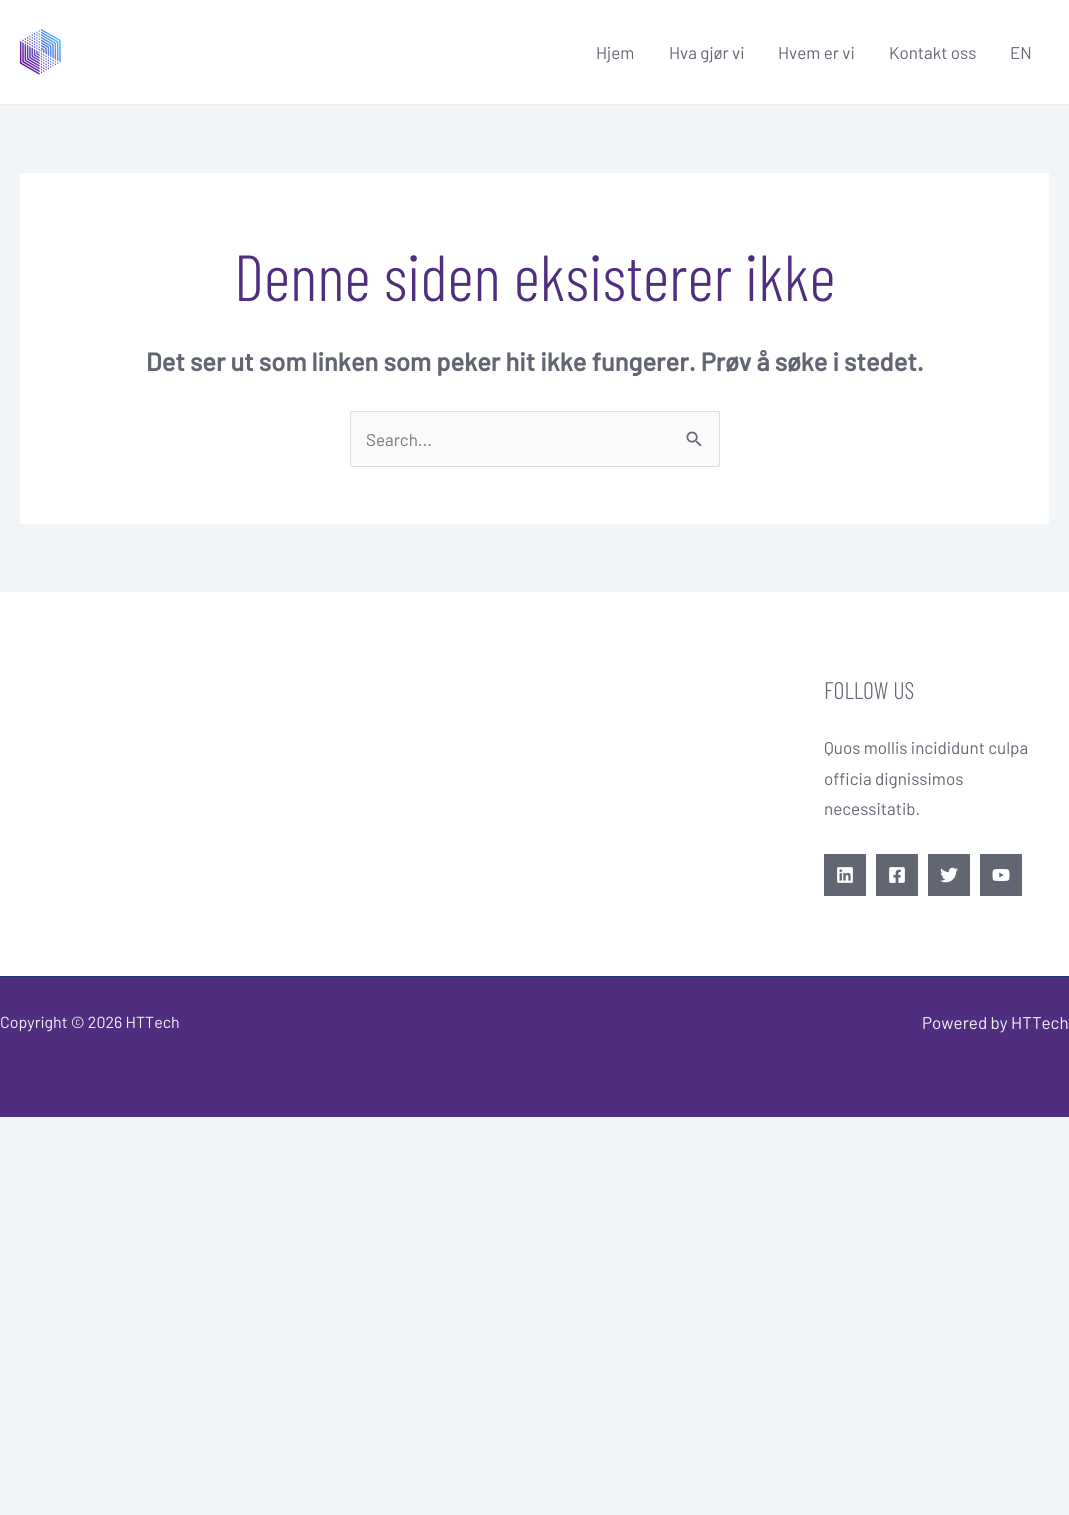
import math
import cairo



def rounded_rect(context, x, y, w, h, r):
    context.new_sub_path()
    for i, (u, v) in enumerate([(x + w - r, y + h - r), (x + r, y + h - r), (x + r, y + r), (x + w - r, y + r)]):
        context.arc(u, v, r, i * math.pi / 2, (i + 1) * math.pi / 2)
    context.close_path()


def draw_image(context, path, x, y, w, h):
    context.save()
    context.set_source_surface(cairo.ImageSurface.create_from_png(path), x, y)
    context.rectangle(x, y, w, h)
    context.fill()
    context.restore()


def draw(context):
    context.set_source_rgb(242 / 255, 245 / 255, 247 / 255)
    context.paint()
    context.set_source_rgb(1, 1, 1)
    context.rectangle(0, 0, 1069, 104)
    context.fill()
    context.set_source_rgb(237 / 255, 237 / 255, 237 / 255)
    context.rectangle(0, 104, 1069, 1)
    context.fill()
    draw_image(context, "images/1.png", 20, 29, 41, 46)
    context.set_source_rgb(1, 1, 1)
    context.rectangle(20, 173, 1029, 351)
    context.fill()
    context.set_source_rgb(250 / 255, 250 / 255, 250 / 255)
    rounded_rect(context, 350.5, 411.5, 369, 55, 1.5)
    context.fill_preserve()
    context.set_source_rgb(221 / 255, 221 / 255, 221 / 255)
    context.set_line_width(1)
    context.stroke()
    draw_image(context, "images/2.png", 686, 431, 16, 16)
    context.set_source_rgb(1, 1, 1)
    context.rectangle(0, 592, 1069, 384)
    context.fill()
    context.set_source_rgb(98 / 255, 101 / 255, 114 / 255)
    context.rectangle(824, 854, 42, 42)
    context.fill()
    draw_image(context, "images/3.png", 837, 867, 16, 16)
    context.rectangle(876, 854, 42, 42)
    context.fill()
    draw_image(context, "images/4.png", 889, 867, 16, 16)
    context.rectangle(928, 854, 42, 42)
    context.fill()
    draw_image(context, "images/5.png", 940, 867, 18, 16)
    context.rectangle(980, 854, 42, 42)
    context.fill()
    draw_image(context, "images/6.png", 992, 869, 18, 12)
    context.set_source_rgb(79 / 255, 45 / 255, 127 / 255)
    context.rectangle(0, 977, 1069, 140)
    context.fill()
    context.set_source_rgb(36 / 255, 54 / 255, 115 / 255)
    context.rectangle(0, 976, 1069, 1)
    context.fill()
    context.select_font_face("Barlow")
    context.set_font_size(17)
    context.set_source_rgb(98 / 255, 101 / 255, 114 / 255)
    context.move_to(596, 59)
    context.show_text("Hjem")
    context.move_to(669, 59)
    context.show_text("Hva gjør vi")
    context.move_to(778, 59)
    context.show_text("Hvem er vi")
    context.move_to(889, 59)
    context.show_text("Kontakt oss")
    context.move_to(1010, 59)
    context.show_text("EN")
    context.select_font_face("Barlow Condensed Light")
    context.set_font_size(65)
    context.set_source_rgb(79 / 255, 45 / 255, 127 / 255)
    context.move_to(234, 301)
    context.show_text("Denne siden eksisterer ikke")
    context.select_font_face("Barlow", cairo.FontSlant.NORMAL, cairo.FontWeight.BOLD)
    context.set_font_size(25.5)
    context.set_source_rgb(98 / 255, 101 / 255, 114 / 255)
    context.move_to(146, 371)
    context.show_text("Det ser ut som linken som peker hit ikke fungerer. Prøv å søke i stedet.")
    context.select_font_face("Barlow")
    context.set_font_size(17)
    context.set_source_rgb(117 / 255, 117 / 255, 117 / 255)
    context.move_to(366, 446)
    context.show_text("Search...")
    context.select_font_face("Barlow Condensed Light")
    context.set_font_size(24)
    context.set_source_rgb(98 / 255, 101 / 255, 114 / 255)
    context.move_to(824, 699)
    context.show_text("FOLLOW US")
    context.select_font_face("Barlow")
    context.set_font_size(17)
    context.move_to(824, 754)
    context.show_text("Quos mollis incididunt culpa")
    context.move_to(824, 785)
    context.show_text("officia dignissimos")
    context.move_to(824, 815)
    context.show_text("necessitatib.")
    context.set_font_size(16)
    context.set_source_rgb(242 / 255, 245 / 255, 247 / 255)
    context.move_to(0, 1028)
    context.show_text("Copyright © 2026 HTTech")
    context.set_font_size(17)
    context.move_to(922, 1029)
    context.show_text("Powered by HTTech")


surface = cairo.ImageSurface(cairo.Format.RGB24, 1069, 1515)
context = cairo.Context(surface)
options = cairo.FontOptions()
options.set_hint_metrics(cairo.HintMetrics.OFF)
options.set_hint_style(cairo.HintStyle.NONE)
context.set_font_options(options)
context.set_miter_limit(4)
draw(context)
surface.write_to_png("out.png")
